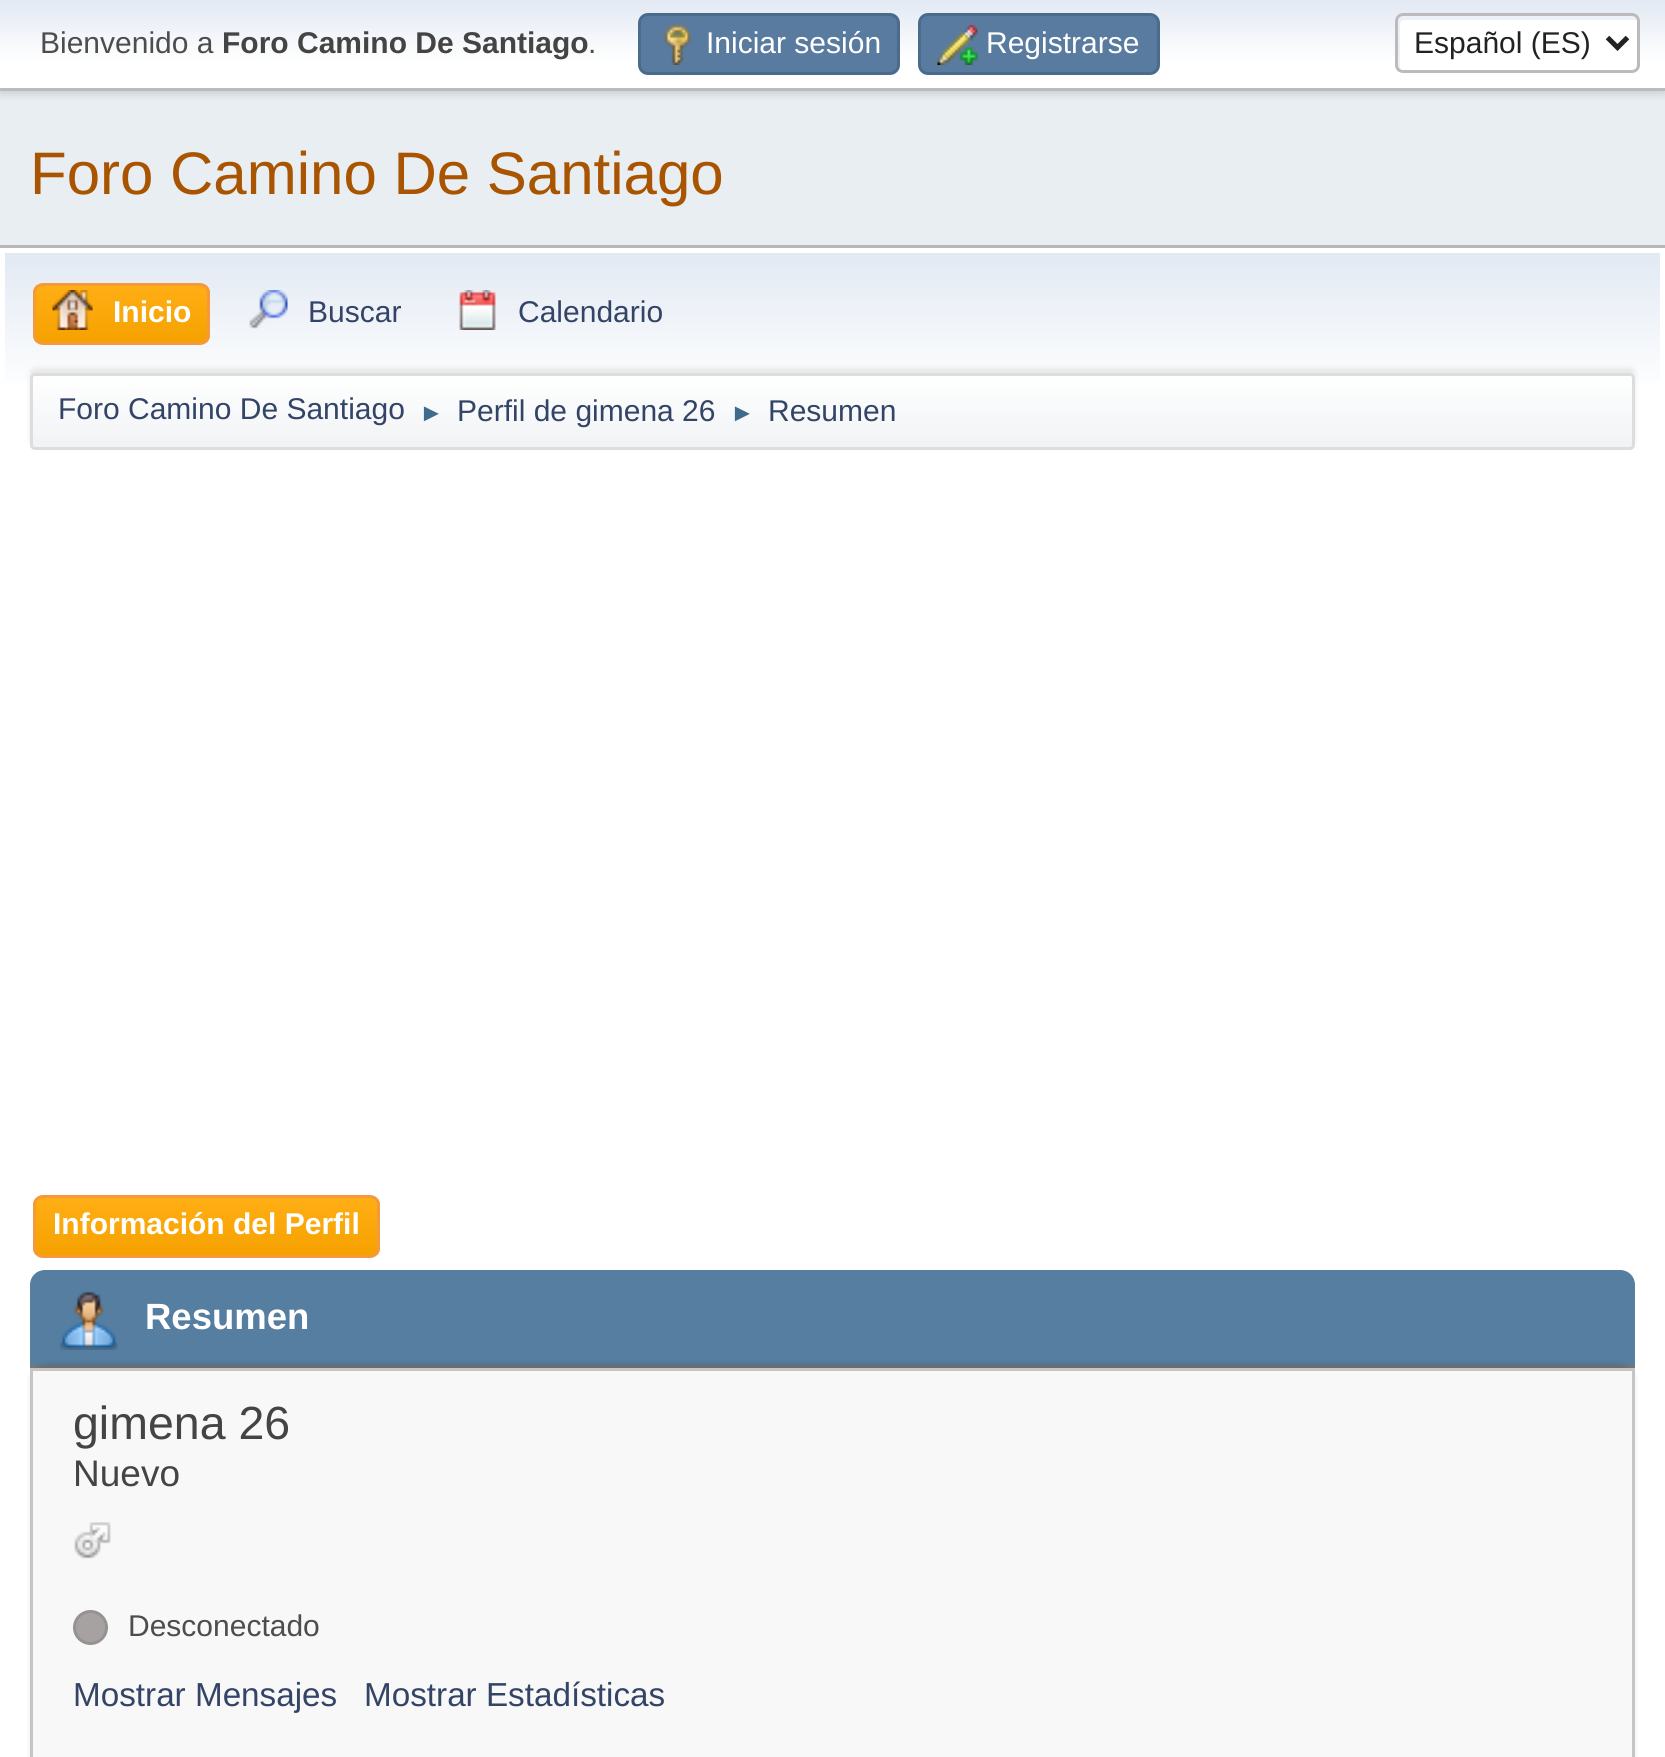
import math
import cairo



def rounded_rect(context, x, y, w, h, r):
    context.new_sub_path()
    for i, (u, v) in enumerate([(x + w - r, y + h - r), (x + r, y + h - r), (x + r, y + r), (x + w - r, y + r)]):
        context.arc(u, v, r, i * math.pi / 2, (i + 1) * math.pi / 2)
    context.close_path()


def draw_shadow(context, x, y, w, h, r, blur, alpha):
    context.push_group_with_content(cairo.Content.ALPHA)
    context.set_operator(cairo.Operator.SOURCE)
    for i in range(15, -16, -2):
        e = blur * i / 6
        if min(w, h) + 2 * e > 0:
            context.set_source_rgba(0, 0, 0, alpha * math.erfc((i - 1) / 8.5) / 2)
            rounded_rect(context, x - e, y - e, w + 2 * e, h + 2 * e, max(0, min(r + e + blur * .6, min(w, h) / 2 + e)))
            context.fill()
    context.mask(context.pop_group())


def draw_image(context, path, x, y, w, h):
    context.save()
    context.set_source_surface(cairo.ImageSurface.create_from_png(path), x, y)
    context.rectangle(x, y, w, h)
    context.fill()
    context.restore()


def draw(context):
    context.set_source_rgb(233 / 255, 238 / 255, 242 / 255)
    context.paint()
    context.set_source_rgb(0, 0, 0)
    draw_shadow(context, 0, 3, 1665, 90, 0, 5, 0.16)
    gradient = cairo.LinearGradient(833, 0, 833, 88)
    gradient.add_color_stop_rgba(0, 226 / 255, 233 / 255, 243 / 255, 1)
    gradient.add_color_stop_rgba(0.7, 1, 1, 1, 1)
    context.set_source(gradient)
    context.rectangle(0, 0, 1665, 88)
    context.fill()
    context.set_source_rgb(187 / 255, 187 / 255, 187 / 255)
    context.rectangle(0, 88, 1665, 3)
    context.fill()
    context.set_source_rgb(89 / 255, 123 / 255, 159 / 255)
    rounded_rect(context, 639.5, 14.5, 259, 59, 8.5)
    context.fill_preserve()
    context.set_source_rgb(74 / 255, 107 / 255, 140 / 255)
    context.set_line_width(3)
    context.stroke()
    draw_image(context, "images/1.png", 664, 25, 27, 40)
    context.set_source_rgb(89 / 255, 123 / 255, 159 / 255)
    rounded_rect(context, 919.5, 14.5, 239, 59, 8.5)
    context.fill_preserve()
    context.set_source_rgb(74 / 255, 107 / 255, 140 / 255)
    context.stroke()
    draw_image(context, "images/2.png", 937, 25, 41, 40)
    context.set_source_rgb(1, 1, 1)
    rounded_rect(context, 1395, 13, 245, 60, 8)
    context.fill()
    context.set_source_rgb(236 / 255, 241 / 255, 248 / 255)
    context.new_path()
    context.move_to(1405, 20)
    context.line_to(1635, 20)
    context.line_to(1638, 21)
    context.line_to(1638, 20)
    context.curve_to(1638, 17, 1636, 15, 1633, 15)
    context.line_to(1403, 15)
    context.curve_to(1400, 15, 1398, 17, 1398, 20)
    context.line_to(1398, 65)
    context.curve_to(1398, 67, 1399, 68, 1400, 69)
    context.line_to(1400, 25)
    context.curve_to(1400, 22, 1402, 20, 1405, 20)
    context.close_path()
    context.fill()
    rounded_rect(context, 1396.5, 14.5, 242, 57, 6.5)
    context.set_source_rgb(187 / 255, 187 / 255, 187 / 255)
    context.stroke()
    context.new_path()
    context.move_to(1607.5, 37.5)
    context.line_to(1617.5, 47.5)
    context.line_to(1627.5, 37.5)
    context.set_source_rgb(34 / 255, 34 / 255, 34 / 255)
    context.set_line_width(5)
    context.stroke()
    context.set_source_rgb(1, 1, 1)
    context.rectangle(0, 248, 1665, 1509)
    context.fill()
    context.set_source_rgb(184 / 255, 184 / 255, 184 / 255)
    context.rectangle(0, 245, 1665, 3)
    context.fill()
    gradient = cairo.LinearGradient(833, 252, 833, 455)
    gradient.add_color_stop_rgba(0, 226 / 255, 233 / 255, 243 / 255, 1)
    gradient.add_color_stop_rgba(0.7, 1, 1, 1, 1)
    context.set_source(gradient)
    context.rectangle(5, 253, 1655, 129)
    context.fill()
    context.save()
    rounded_rect(context, 33, 283, 177, 62, 10)
    context.clip()
    gradient = cairo.LinearGradient(121, 285, 121, 343)
    gradient.add_color_stop_rgba(0, 1, 174 / 255, 20 / 255, 1)
    gradient.add_color_stop_rgba(1, 245 / 255, 161 / 255, 0, 1)
    context.set_source(gradient)
    context.rectangle(33, 285, 177, 58)
    context.fill()
    context.restore()
    rounded_rect(context, 34.5, 284.5, 174, 59, 8.5)
    context.set_source_rgb(244 / 255, 154 / 255, 58 / 255)
    context.set_line_width(3)
    context.stroke()
    draw_image(context, "images/3.png", 52, 290, 41, 40)
    draw_image(context, "images/4.png", 249, 290, 39, 39)
    draw_image(context, "images/5.png", 459, 290, 37, 40)
    context.set_source_rgb(0, 0, 0)
    draw_shadow(context, 30, 368, 1605, 77, 5, 2.5, 0.08)
    context.save()
    rounded_rect(context, 30, 373, 1605, 77, 5)
    context.clip()
    gradient = cairo.LinearGradient(833, 375, 833, 448)
    gradient.add_color_stop_rgba(0, 1, 1, 1, 1)
    gradient.add_color_stop_rgba(0.95, 241 / 255, 243 / 255, 245 / 255, 1)
    context.set_source(gradient)
    context.rectangle(30, 375, 1605, 73)
    context.fill()
    context.restore()
    rounded_rect(context, 31.5, 374.5, 1602, 74, 3.5)
    context.set_source_rgb(221 / 255, 221 / 255, 221 / 255)
    context.stroke()
    context.save()
    rounded_rect(context, 33, 1195, 347, 63, 10)
    context.clip()
    gradient = cairo.LinearGradient(206, 1198, 206, 1255)
    gradient.add_color_stop_rgba(0, 1, 174 / 255, 20 / 255, 1)
    gradient.add_color_stop_rgba(1, 245 / 255, 161 / 255, 0, 1)
    context.set_source(gradient)
    context.rectangle(33, 1198, 347, 57)
    context.fill()
    context.restore()
    rounded_rect(context, 34.5, 1196.5, 344, 60, 8.5)
    context.set_source_rgb(244 / 255, 154 / 255, 58 / 255)
    context.stroke()
    context.set_source_rgb(85 / 255, 126 / 255, 160 / 255)
    context.new_path()
    context.move_to(45, 1270)
    context.line_to(1620, 1270)
    context.curve_to(1628.5, 1270, 1635, 1276.5, 1635, 1285)
    context.line_to(1635, 1368)
    context.line_to(30, 1368)
    context.line_to(30, 1285)
    context.curve_to(30, 1276.5, 36.5, 1270, 45, 1270)
    context.close_path()
    context.fill()
    context.set_source_rgb(119 / 255, 119 / 255, 119 / 255)
    context.rectangle(30, 1365, 1605, 3)
    context.fill()
    draw_image(context, "images/6.png", 60, 1291, 58, 59)
    context.set_source_rgb(0, 0, 0)
    draw_shadow(context, 30, 1363, 1605, 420, 18, 2.5, 0.1)
    context.set_source_rgb(248 / 255, 248 / 255, 248 / 255)
    context.rectangle(31.5, 1369.5, 1602, 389)
    context.fill_preserve()
    context.set_source_rgb(197 / 255, 197 / 255, 197 / 255)
    context.stroke()
    draw_image(context, "images/7.png", 74, 1522, 37, 37)
    context.set_source_rgb(167 / 255, 162 / 255, 162 / 255)
    context.arc(90.5, 1627.5, 16, 0, 2 * math.pi)
    context.fill_preserve()
    context.set_source_rgb(150 / 255, 146 / 255, 146 / 255)
    context.stroke()
    context.select_font_face("Liberation Sans")
    context.set_font_size(30)
    context.set_source_rgb(77 / 255, 77 / 255, 77 / 255)
    context.move_to(40, 53)
    context.show_text("Bienvenido a")
    context.select_font_face("Liberation Sans", cairo.FontSlant.NORMAL, cairo.FontWeight.BOLD)
    context.set_source_rgb(68 / 255, 68 / 255, 68 / 255)
    context.move_to(222, 53)
    context.show_text("Foro Camino De Santiago")
    context.select_font_face("Liberation Sans")
    context.set_source_rgb(77 / 255, 77 / 255, 77 / 255)
    context.move_to(588, 53)
    context.show_text(".")
    context.set_source_rgb(1, 1, 1)
    context.move_to(706, 53)
    context.show_text("Iniciar sesión")
    context.move_to(986, 53)
    context.show_text("Registrarse")
    context.set_source_rgb(34 / 255, 34 / 255, 34 / 255)
    context.move_to(1414, 53)
    context.show_text("Español (ES)")
    context.set_font_size(60)
    context.set_source_rgb(168 / 255, 84 / 255, 0)
    context.move_to(30, 194)
    context.show_text("Foro Camino De Santiago")
    context.select_font_face("Liberation Sans", cairo.FontSlant.NORMAL, cairo.FontWeight.BOLD)
    context.set_font_size(30)
    context.set_source_rgb(1, 1, 1)
    context.move_to(113, 322)
    context.show_text("Inicio")
    context.select_font_face("Liberation Sans")
    context.set_source_rgb(51 / 255, 68 / 255, 102 / 255)
    context.move_to(308, 322)
    context.show_text("Buscar")
    context.move_to(518, 322)
    context.show_text("Calendario")
    context.move_to(58, 419)
    context.show_text("Foro Camino De Santiago")
    context.set_font_size(25)
    context.set_source_rgb(63 / 255, 107 / 255, 140 / 255)
    context.move_to(419, 421)
    context.show_text("►")
    context.set_font_size(30)
    context.set_source_rgb(51 / 255, 68 / 255, 102 / 255)
    context.move_to(457, 421)
    context.show_text("Perfil de gimena 26")
    context.set_font_size(25)
    context.set_source_rgb(63 / 255, 107 / 255, 140 / 255)
    context.move_to(730, 421)
    context.show_text("►")
    context.set_font_size(30)
    context.set_source_rgb(51 / 255, 68 / 255, 102 / 255)
    context.move_to(768, 421)
    context.show_text("Resumen")
    context.select_font_face("Liberation Sans", cairo.FontSlant.NORMAL, cairo.FontWeight.BOLD)
    context.set_source_rgb(1, 1, 1)
    context.move_to(53, 1234)
    context.show_text("Información del Perfil")
    context.set_font_size(36.5)
    context.move_to(145, 1329)
    context.show_text("Resumen")
    context.select_font_face("Liberation Sans")
    context.set_font_size(46.5)
    context.set_source_rgb(68 / 255, 68 / 255, 68 / 255)
    context.move_to(73, 1439)
    context.show_text("gimena 26")
    context.set_font_size(37)
    context.move_to(73, 1486)
    context.show_text("Nuevo")
    context.set_font_size(30)
    context.set_source_rgb(77 / 255, 77 / 255, 77 / 255)
    context.move_to(128, 1636)
    context.show_text("Desconectado")
    context.set_font_size(33.25)
    context.set_source_rgb(51 / 255, 68 / 255, 102 / 255)
    context.move_to(73, 1706)
    context.show_text("Mostrar Mensajes")
    context.move_to(364, 1706)
    context.show_text("Mostrar Estadísticas")


surface = cairo.ImageSurface(cairo.Format.RGB24, 1665, 1757)
context = cairo.Context(surface)
options = cairo.FontOptions()
options.set_hint_metrics(cairo.HintMetrics.OFF)
options.set_hint_style(cairo.HintStyle.NONE)
context.set_font_options(options)
context.set_miter_limit(4)
draw(context)
surface.write_to_png("out.png")
